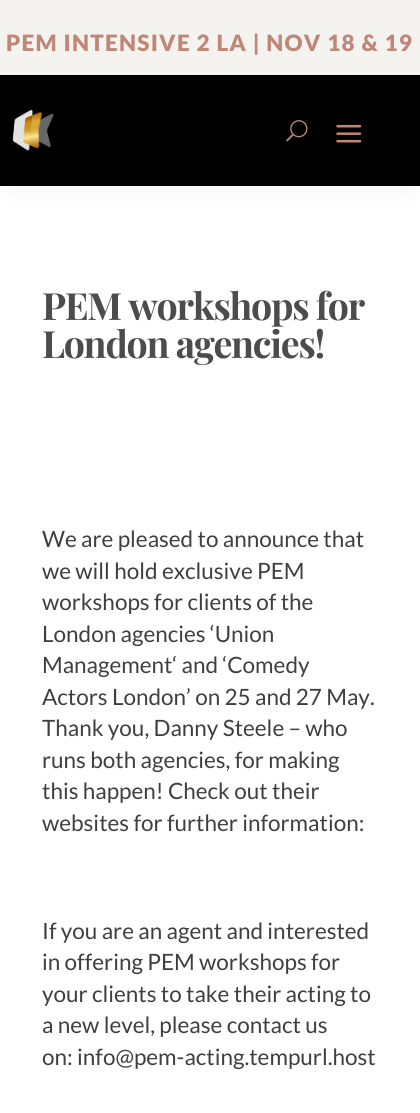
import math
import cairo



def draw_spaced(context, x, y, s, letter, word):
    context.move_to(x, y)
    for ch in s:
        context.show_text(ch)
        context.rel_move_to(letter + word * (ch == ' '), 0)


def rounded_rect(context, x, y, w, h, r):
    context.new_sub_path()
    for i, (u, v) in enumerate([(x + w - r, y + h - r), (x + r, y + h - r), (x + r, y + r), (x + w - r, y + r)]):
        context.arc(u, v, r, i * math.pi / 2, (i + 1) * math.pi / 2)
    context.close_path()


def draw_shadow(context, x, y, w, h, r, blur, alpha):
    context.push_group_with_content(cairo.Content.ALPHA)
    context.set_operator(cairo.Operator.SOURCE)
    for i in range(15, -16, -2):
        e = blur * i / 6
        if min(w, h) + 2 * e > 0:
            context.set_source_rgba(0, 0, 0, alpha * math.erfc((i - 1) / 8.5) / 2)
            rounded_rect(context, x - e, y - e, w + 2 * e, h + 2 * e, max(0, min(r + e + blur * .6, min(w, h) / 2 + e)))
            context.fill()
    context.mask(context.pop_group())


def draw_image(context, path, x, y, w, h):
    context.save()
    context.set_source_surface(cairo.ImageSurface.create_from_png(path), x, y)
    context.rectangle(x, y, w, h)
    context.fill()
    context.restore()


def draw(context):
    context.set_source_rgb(1, 1, 1)
    context.paint()
    context.set_source_rgb(245 / 255, 243 / 255, 240 / 255)
    context.rectangle(0, 0, 420, 75)
    context.fill()
    context.set_source_rgb(0, 0, 0)
    draw_shadow(context, 8, 98, 405, 96, 0, 11, 0.04)
    context.set_source_rgb(0, 0, 0)
    context.rectangle(0, 75, 420, 111)
    context.fill()
    draw_image(context, "images/1.png", 12, 109, 42, 42)
    draw_image(context, "images/2.png", 286, 120, 22, 22)
    draw_image(context, "images/3.png", 336, 124, 26, 19)
    context.select_font_face("Lato Black")
    context.set_font_size(22.5)
    context.set_source_rgb(191 / 255, 135 / 255, 118 / 255)
    draw_spaced(context, 6, 51, "PEM INTENSIVE 2 LA | NOV 18 & 19", 1.25, 0)
    context.select_font_face("Playfair Display", cairo.FontSlant.NORMAL, cairo.FontWeight.BOLD)
    context.set_font_size(37.5)
    context.set_source_rgb(76 / 255, 76 / 255, 76 / 255)
    draw_spaced(context, 42, 320, "PEM workshops for", -1.25, 0)
    draw_spaced(context, 42, 358, "London agencies!", -1.25, 0)
    context.select_font_face("Lato")
    context.set_font_size(22.5)
    context.set_source_rgb(63 / 255, 63 / 255, 63 / 255)
    context.move_to(42, 547)
    context.show_text("We are pleased to announce that")
    context.move_to(42, 579)
    context.show_text("we will hold exclusive PEM")
    context.move_to(42, 610)
    context.show_text("workshops for clients of the")
    context.move_to(42, 642)
    context.show_text("London agencies ‘Union")
    context.move_to(42, 673)
    context.show_text("Management‘ and ‘Comedy")
    context.move_to(42, 705)
    context.show_text("Actors London’ on 25 and 27 May.")
    context.move_to(42, 736)
    context.show_text("Thank you, Danny Steele – who")
    context.move_to(42, 768)
    context.show_text("runs both agencies, for making")
    context.move_to(42, 799)
    context.show_text("this happen! Check out their")
    context.move_to(42, 831)
    context.show_text("websites for further information:")
    context.move_to(42, 939)
    context.show_text("If you are an agent and interested")
    context.move_to(42, 970)
    context.show_text("in offering PEM workshops for")
    context.move_to(42, 1002)
    context.show_text("your clients to take their acting to")
    context.move_to(42, 1033)
    context.show_text("a new level, please contact us")
    context.move_to(42, 1065)
    context.show_text("on: info@pem-acting.tempurl.host")


surface = cairo.ImageSurface(cairo.Format.RGB24, 420, 1113)
context = cairo.Context(surface)
options = cairo.FontOptions()
options.set_hint_metrics(cairo.HintMetrics.OFF)
options.set_hint_style(cairo.HintStyle.NONE)
context.set_font_options(options)
context.set_miter_limit(4)
draw(context)
surface.write_to_png("out.png")
